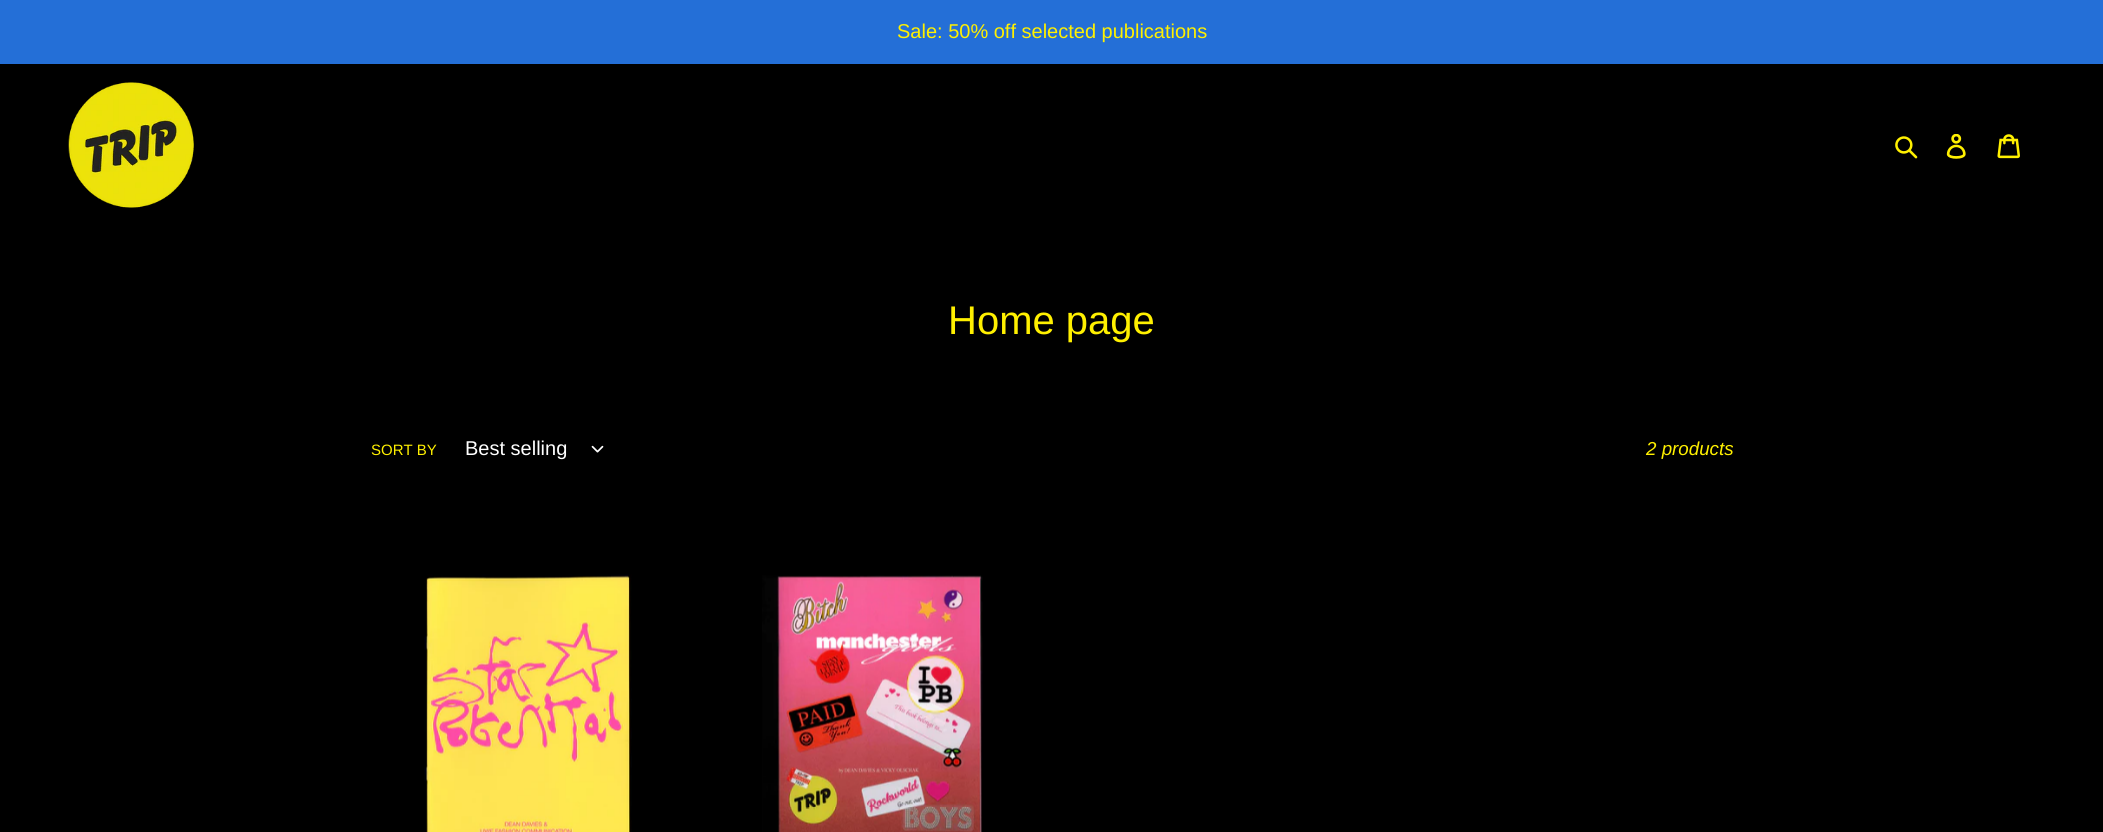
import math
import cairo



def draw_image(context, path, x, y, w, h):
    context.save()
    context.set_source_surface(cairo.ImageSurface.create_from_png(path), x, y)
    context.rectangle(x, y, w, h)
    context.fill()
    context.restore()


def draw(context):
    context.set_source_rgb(0, 0, 0)
    context.paint()
    context.set_source_rgb(36 / 255, 111 / 255, 215 / 255)
    context.rectangle(0, 0, 2103, 64)
    context.fill()
    draw_image(context, "images/1.png", 68, 82, 126, 126)
    draw_image(context, "images/2.png", 1895, 136, 23, 23)
    draw_image(context, "images/3.png", 1946, 134, 20, 25)
    draw_image(context, "images/4.png", 1997, 134, 23, 25)
    draw_image(context, "images/5.png", 591, 445, 13, 8)
    draw_image(context, "images/6.png", 424, 574, 208, 258)
    draw_image(context, "images/7.png", 762, 575, 221, 257)
    context.select_font_face("Liberation Sans")
    context.set_font_size(20)
    context.set_source_rgb(1, 240 / 255, 0)
    context.move_to(897, 38)
    context.show_text("Sale: 50% off selected publications")
    context.set_font_size(40)
    context.move_to(948, 334)
    context.show_text("Home page")
    context.set_font_size(15)
    context.move_to(371, 455)
    context.show_text("SORT BY")
    context.set_font_size(20)
    context.set_source_rgb(1, 1, 1)
    context.move_to(465, 455)
    context.show_text("Best selling")
    context.select_font_face("Liberation Sans", cairo.FontSlant.ITALIC)
    context.set_font_size(18.75)
    context.set_source_rgb(1, 240 / 255, 0)
    context.move_to(1646, 455)
    context.show_text("2 products")


surface = cairo.ImageSurface(cairo.Format.RGB24, 2103, 832)
context = cairo.Context(surface)
options = cairo.FontOptions()
options.set_hint_metrics(cairo.HintMetrics.OFF)
options.set_hint_style(cairo.HintStyle.NONE)
context.set_font_options(options)
context.set_miter_limit(4)
draw(context)
surface.write_to_png("out.png")
